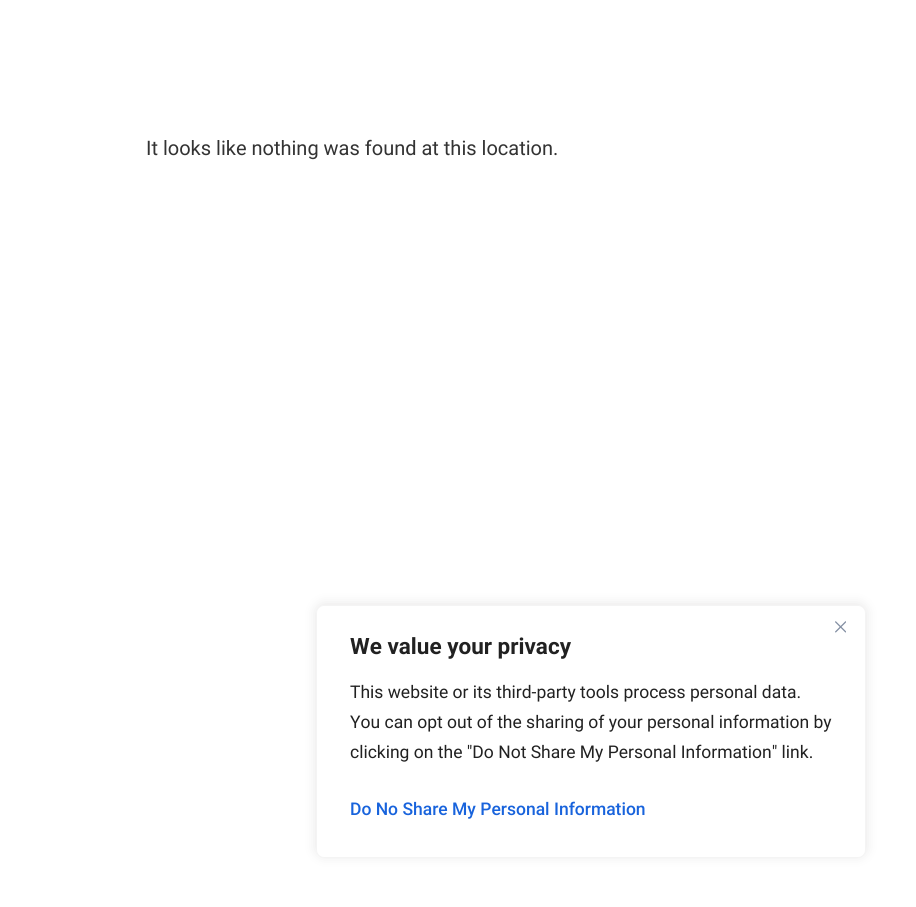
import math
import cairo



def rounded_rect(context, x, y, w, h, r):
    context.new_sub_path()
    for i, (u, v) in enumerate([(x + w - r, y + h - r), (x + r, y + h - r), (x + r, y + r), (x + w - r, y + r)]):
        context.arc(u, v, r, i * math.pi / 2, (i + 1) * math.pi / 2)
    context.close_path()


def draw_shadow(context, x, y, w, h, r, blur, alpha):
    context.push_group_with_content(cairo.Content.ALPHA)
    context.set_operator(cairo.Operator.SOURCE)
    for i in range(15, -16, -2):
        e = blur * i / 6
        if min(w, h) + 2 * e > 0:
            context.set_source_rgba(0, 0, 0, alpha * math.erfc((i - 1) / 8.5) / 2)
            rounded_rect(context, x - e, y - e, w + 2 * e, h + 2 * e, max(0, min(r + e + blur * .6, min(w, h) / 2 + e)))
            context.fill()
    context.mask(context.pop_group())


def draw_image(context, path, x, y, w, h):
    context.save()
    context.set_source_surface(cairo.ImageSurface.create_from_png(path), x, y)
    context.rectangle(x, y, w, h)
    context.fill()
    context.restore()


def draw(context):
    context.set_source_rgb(1, 1, 1)
    context.paint()
    context.set_source_rgb(172 / 255, 171 / 255, 171 / 255)
    draw_shadow(context, 316, 604, 550, 252, 8, 6, 0.3)
    context.set_source_rgb(1, 1, 1)
    rounded_rect(context, 316.5, 605.5, 549, 252, 7.5)
    context.fill_preserve()
    context.set_source_rgb(244 / 255, 244 / 255, 244 / 255)
    context.set_line_width(1)
    context.stroke()
    draw_image(context, "images/1.png", 835, 621, 11, 12)
    context.select_font_face("Roboto")
    context.set_font_size(20)
    context.set_source_rgb(51 / 255, 51 / 255, 51 / 255)
    context.move_to(146, 155)
    context.show_text("It looks like nothing was found at this location.")
    context.select_font_face("Roboto", cairo.FontSlant.NORMAL, cairo.FontWeight.BOLD)
    context.set_font_size(22.5)
    context.set_source_rgb(33 / 255, 33 / 255, 33 / 255)
    context.move_to(350, 654)
    context.show_text("We value your privacy")
    context.select_font_face("Roboto")
    context.set_font_size(17.5)
    context.move_to(350, 698)
    context.show_text("This website or its third-party tools process personal data.")
    context.move_to(350, 728)
    context.show_text("You can opt out of the sharing of your personal information by")
    context.move_to(350, 758)
    context.show_text("clicking on the \"Do Not Share My Personal Information\" link.")
    context.select_font_face("Roboto Medium")
    context.set_source_rgb(24 / 255, 99 / 255, 220 / 255)
    context.move_to(350, 815)
    context.show_text("Do No Share My Personal Information")


surface = cairo.ImageSurface(cairo.Format.RGB24, 916, 907)
context = cairo.Context(surface)
options = cairo.FontOptions()
options.set_hint_metrics(cairo.HintMetrics.OFF)
options.set_hint_style(cairo.HintStyle.NONE)
context.set_font_options(options)
context.set_miter_limit(4)
draw(context)
surface.write_to_png("out.png")
